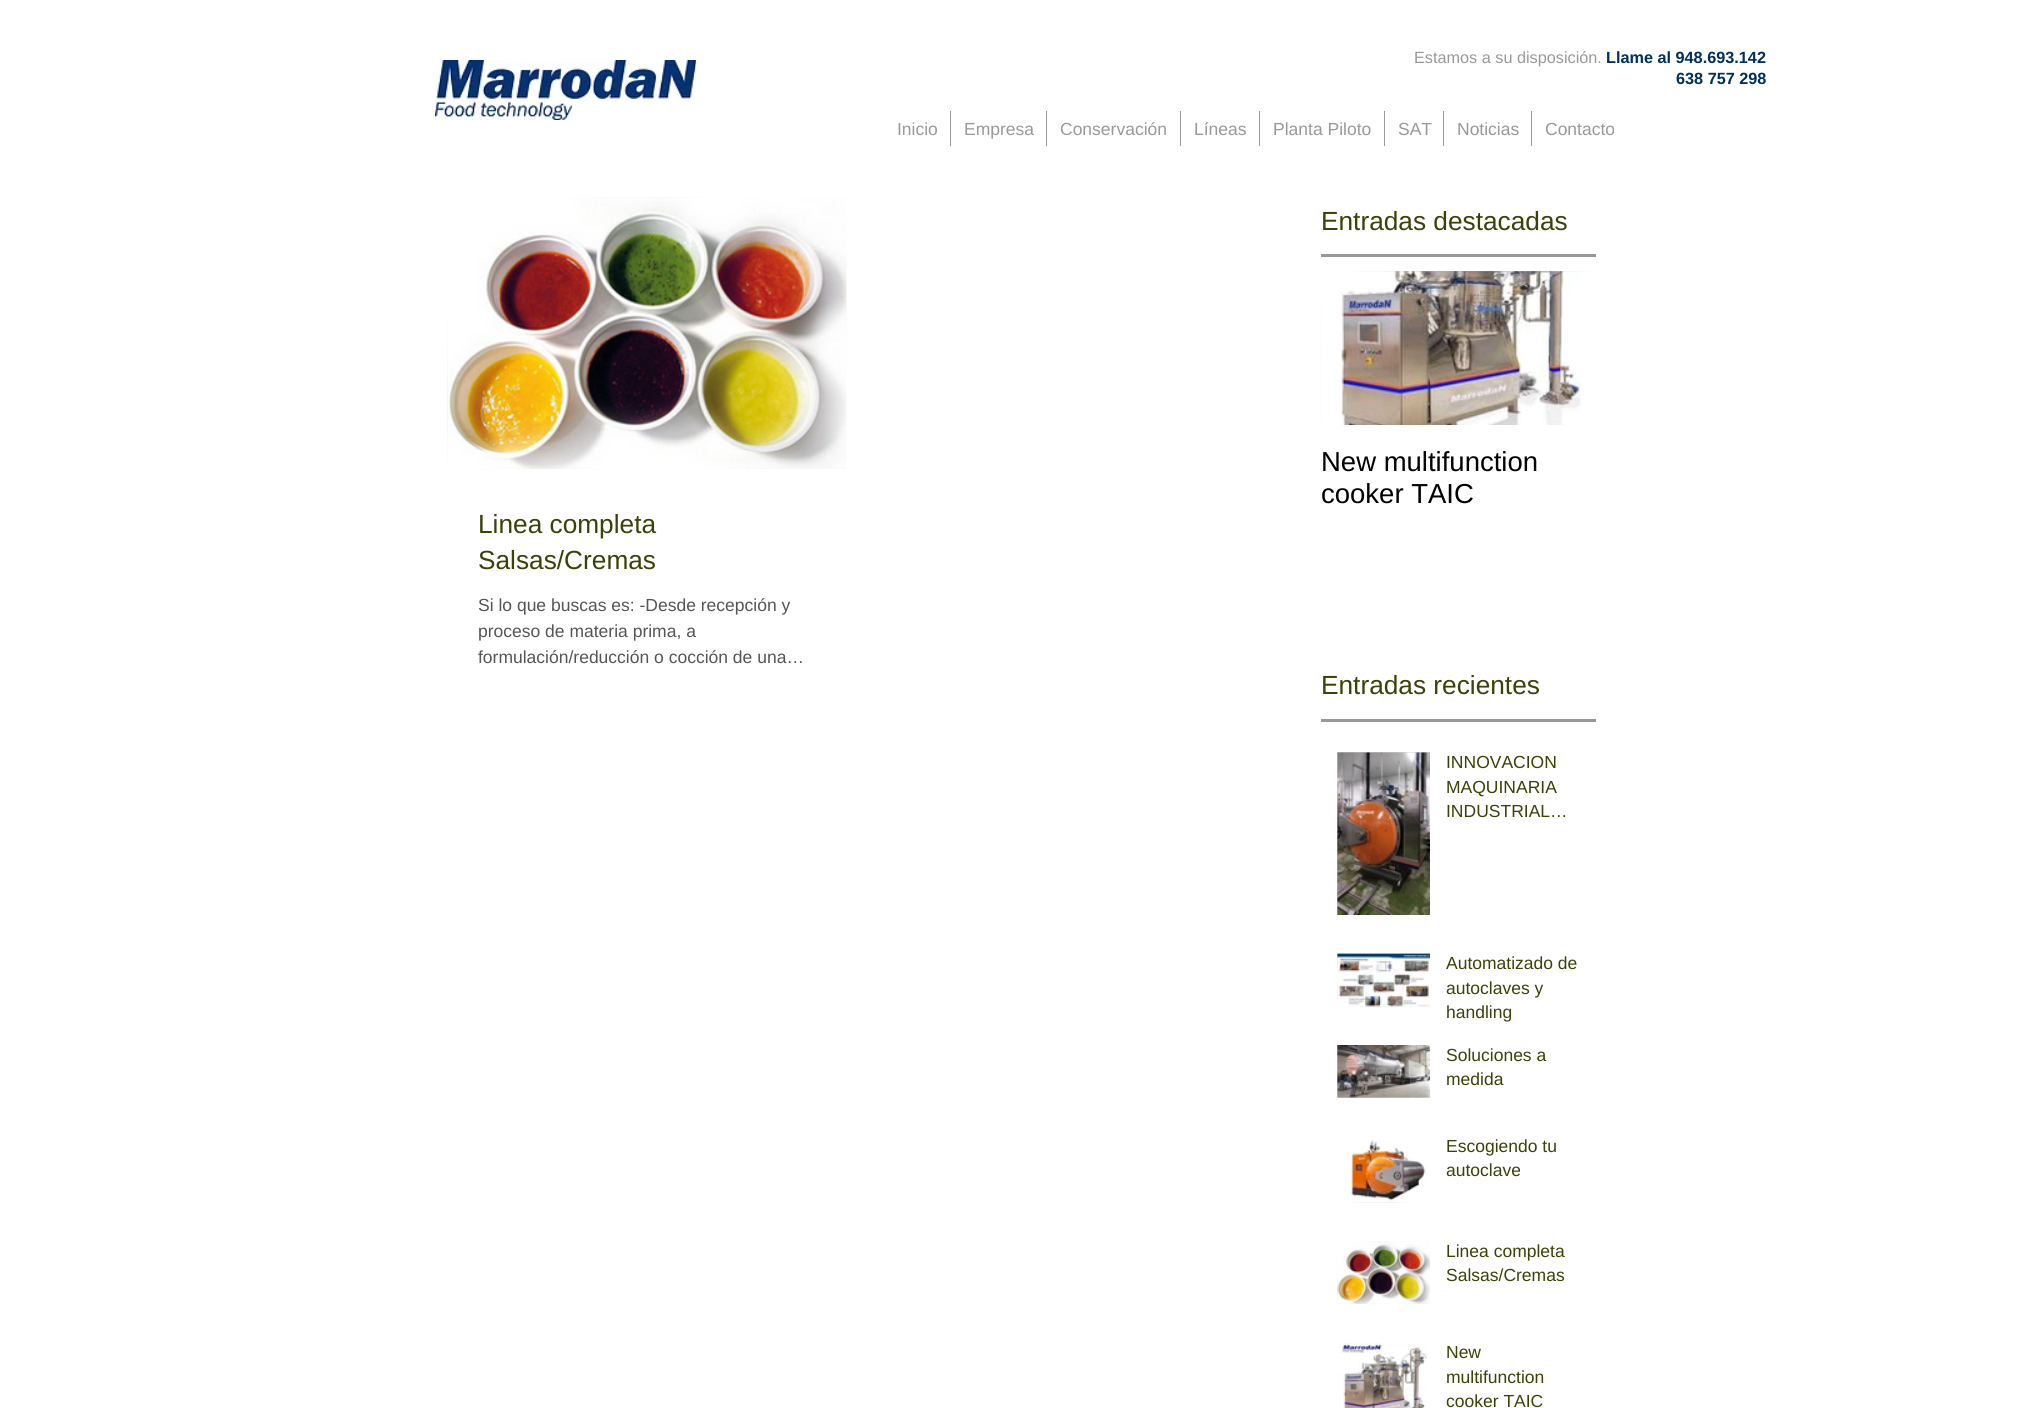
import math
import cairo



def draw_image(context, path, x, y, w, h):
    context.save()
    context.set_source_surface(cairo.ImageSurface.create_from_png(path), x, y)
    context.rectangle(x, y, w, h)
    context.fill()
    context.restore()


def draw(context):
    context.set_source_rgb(1, 1, 1)
    context.paint()
    draw_image(context, "images/1.png", 435, 60, 262, 60)
    context.set_source_rgb(153 / 255, 153 / 255, 153 / 255)
    context.rectangle(950, 111, 1, 35)
    context.fill()
    context.rectangle(1046, 111, 1, 35)
    context.fill()
    context.rectangle(1180, 111, 1, 35)
    context.fill()
    context.rectangle(1259, 111, 1, 35)
    context.fill()
    context.rectangle(1384, 111, 1, 35)
    context.fill()
    context.rectangle(1443, 111, 1, 35)
    context.fill()
    context.rectangle(1531, 111, 1, 35)
    context.fill()
    context.rectangle(1321, 254, 275, 3)
    context.fill()
    draw_image(context, "images/2.png", 1321, 271, 275, 154)
    draw_image(context, "images/3.png", 1321, 271, 275, 154)
    draw_image(context, "images/4.png", 447, 197, 400, 272)
    draw_image(context, "images/5.png", 447, 197, 400, 272)
    context.rectangle(1321, 719, 275, 3)
    context.fill()
    draw_image(context, "images/6.png", 1337, 752, 93, 163)
    draw_image(context, "images/7.png", 1337, 752, 93, 163)
    draw_image(context, "images/8.png", 1337, 953, 93, 54)
    draw_image(context, "images/9.png", 1337, 953, 93, 54)
    draw_image(context, "images/10.png", 1337, 1045, 93, 53)
    draw_image(context, "images/11.png", 1337, 1045, 93, 53)
    draw_image(context, "images/12.png", 1339, 1136, 91, 67)
    draw_image(context, "images/13.png", 1339, 1136, 91, 67)
    draw_image(context, "images/14.png", 1337, 1241, 93, 63)
    draw_image(context, "images/15.png", 1337, 1241, 93, 63)
    draw_image(context, "images/16.png", 1338, 1343, 92, 65)
    context.select_font_face("Liberation Sans")
    context.set_font_size(16.25)
    context.move_to(1414, 63)
    context.show_text("Estamos a su disposición.")
    context.select_font_face("Liberation Sans", cairo.FontSlant.NORMAL, cairo.FontWeight.BOLD)
    context.set_source_rgb(0, 48 / 255, 91 / 255)
    context.move_to(1606, 63)
    context.show_text("Llame al 948.693.142")
    context.move_to(1676, 84)
    context.show_text("638 757 298")
    context.select_font_face("Liberation Sans")
    context.set_font_size(17.5)
    context.set_source_rgb(153 / 255, 153 / 255, 153 / 255)
    context.move_to(897, 135)
    context.show_text("Inicio")
    context.move_to(964, 135)
    context.show_text("Empresa")
    context.move_to(1060, 135)
    context.show_text("Conservación")
    context.move_to(1194, 135)
    context.show_text("Líneas")
    context.move_to(1273, 135)
    context.show_text("Planta Piloto")
    context.move_to(1398, 135)
    context.show_text("SAT")
    context.move_to(1457, 135)
    context.show_text("Noticias")
    context.move_to(1545, 135)
    context.show_text("Contacto")
    context.set_font_size(26.25)
    context.set_source_rgb(60 / 255, 65 / 255, 7 / 255)
    context.move_to(1321, 230)
    context.show_text("Entradas destacadas")
    context.set_font_size(27.5)
    context.set_source_rgb(0, 0, 0)
    context.move_to(1321, 471)
    context.show_text("New multifunction")
    context.move_to(1321, 503)
    context.show_text("cooker TAIC")
    context.set_font_size(26.25)
    context.set_source_rgb(60 / 255, 65 / 255, 7 / 255)
    context.move_to(478, 533)
    context.show_text("Linea completa")
    context.move_to(478, 569)
    context.show_text("Salsas/Cremas")
    context.set_font_size(17.5)
    context.set_source_rgb(85 / 255, 85 / 255, 85 / 255)
    context.move_to(478, 611)
    context.show_text("Si lo que buscas es: -Desde recepción y")
    context.move_to(478, 637)
    context.show_text("proceso de materia prima, a")
    context.move_to(478, 663)
    context.show_text("formulación/reducción o cocción de una…")
    context.set_font_size(26.25)
    context.set_source_rgb(60 / 255, 65 / 255, 7 / 255)
    context.move_to(1321, 694)
    context.show_text("Entradas recientes")
    context.set_font_size(17.5)
    context.move_to(1446, 768)
    context.show_text("INNOVACION")
    context.move_to(1446, 793)
    context.show_text("MAQUINARIA")
    context.move_to(1446, 817)
    context.show_text("INDUSTRIAL…")
    context.move_to(1446, 969)
    context.show_text("Automatizado de")
    context.move_to(1446, 994)
    context.show_text("autoclaves y")
    context.move_to(1446, 1018)
    context.show_text("handling")
    context.move_to(1446, 1061)
    context.show_text("Soluciones a")
    context.move_to(1446, 1085)
    context.show_text("medida")
    context.move_to(1446, 1152)
    context.show_text("Escogiendo tu")
    context.move_to(1446, 1176)
    context.show_text("autoclave")
    context.move_to(1446, 1257)
    context.show_text("Linea completa")
    context.move_to(1446, 1281)
    context.show_text("Salsas/Cremas")
    context.move_to(1446, 1358)
    context.show_text("New")
    context.move_to(1446, 1383)
    context.show_text("multifunction")
    context.move_to(1446, 1407)
    context.show_text("cooker TAIC")


surface = cairo.ImageSurface(cairo.Format.RGB24, 2044, 1408)
context = cairo.Context(surface)
options = cairo.FontOptions()
options.set_hint_metrics(cairo.HintMetrics.OFF)
options.set_hint_style(cairo.HintStyle.NONE)
context.set_font_options(options)
context.set_miter_limit(4)
draw(context)
surface.write_to_png("out.png")
